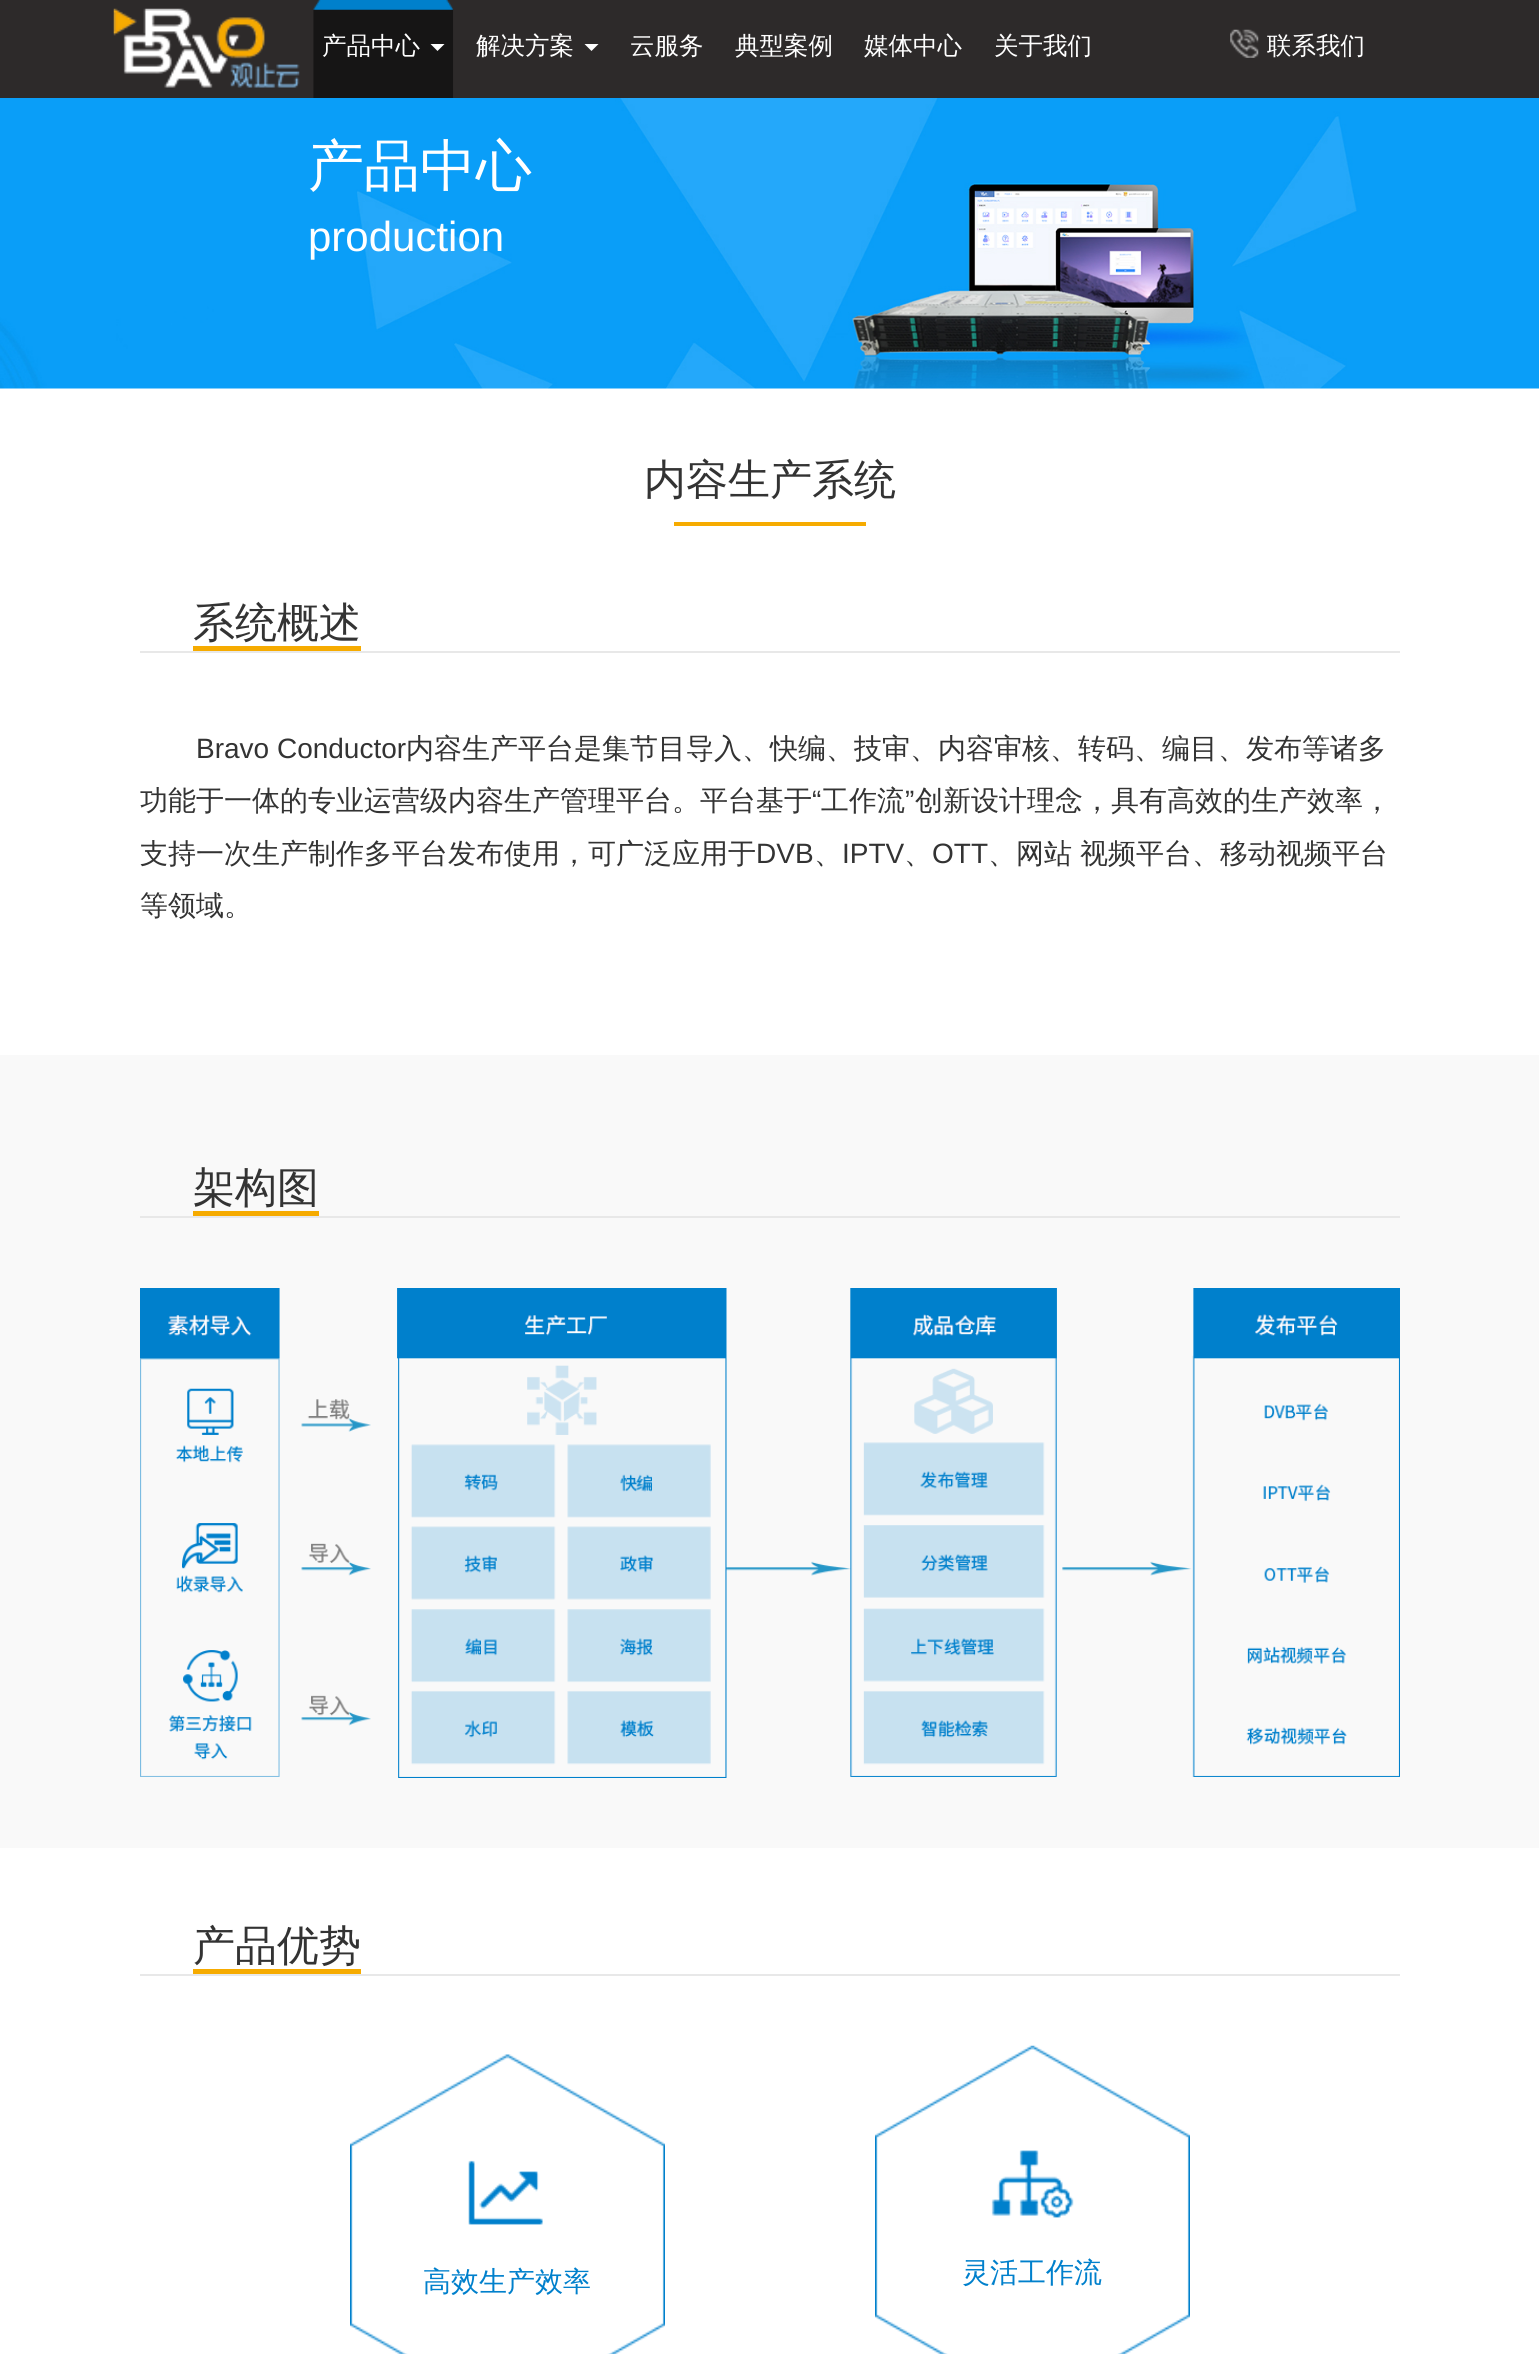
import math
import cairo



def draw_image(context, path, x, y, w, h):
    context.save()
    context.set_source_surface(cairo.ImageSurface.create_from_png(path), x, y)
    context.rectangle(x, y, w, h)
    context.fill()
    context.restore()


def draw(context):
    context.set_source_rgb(1, 1, 1)
    context.paint()
    context.set_source_rgb(45 / 255, 42 / 255, 42 / 255)
    context.rectangle(0, 0, 1539, 98)
    context.fill()
    draw_image(context, "images/1.png", 113, 8, 187, 80)
    draw_image(context, "images/2.png", 313, 0, 141, 98)
    context.set_source_rgb(1, 1, 1)
    context.new_path()
    context.move_to(430.5, 44)
    context.line_to(444.5, 44)
    context.line_to(437.5, 51)
    context.close_path()
    context.fill()
    context.new_path()
    context.move_to(584.5, 44)
    context.line_to(598.5, 44)
    context.line_to(591.5, 51)
    context.close_path()
    context.fill()
    draw_image(context, "images/3.png", 1230, 29, 29, 29)
    draw_image(context, "images/4.png", 0, 98, 1539, 291)
    context.set_source_rgb(246 / 255, 171 / 255, 0)
    context.rectangle(674, 522, 192, 4)
    context.fill()
    context.set_source_rgb(232 / 255, 232 / 255, 232 / 255)
    context.rectangle(140, 651, 1260, 2)
    context.fill()
    context.set_source_rgb(246 / 255, 171 / 255, 0)
    context.rectangle(193, 646, 168, 5)
    context.fill()
    context.set_source_rgb(249 / 255, 249 / 255, 249 / 255)
    context.rectangle(0, 1055, 1539, 793)
    context.fill()
    context.set_source_rgb(232 / 255, 232 / 255, 232 / 255)
    context.rectangle(140, 1216, 1260, 2)
    context.fill()
    context.set_source_rgb(246 / 255, 171 / 255, 0)
    context.rectangle(193, 1211, 126, 5)
    context.fill()
    draw_image(context, "images/5.png", 140, 1288, 1260, 490)
    context.set_source_rgb(232 / 255, 232 / 255, 232 / 255)
    context.rectangle(140, 1974, 1260, 2)
    context.fill()
    context.set_source_rgb(246 / 255, 171 / 255, 0)
    context.rectangle(193, 1969, 168, 5)
    context.fill()
    draw_image(context, "images/6.png", 350, 2054, 315, 300)
    draw_image(context, "images/7.png", 875, 2045, 315, 309)
    context.select_font_face("WenQuanYi Zen Hei Medium")
    context.set_font_size(24.5)
    context.set_source_rgb(1, 1, 1)
    context.move_to(322, 54)
    context.show_text("产品中心")
    context.move_to(476, 54)
    context.show_text("解决方案")
    context.move_to(630, 54)
    context.show_text("云服务")
    context.move_to(735, 54)
    context.show_text("典型案例")
    context.move_to(864, 54)
    context.show_text("媒体中心")
    context.move_to(994, 54)
    context.show_text("关于我们")
    context.move_to(1267, 54)
    context.show_text("联系我们")
    context.set_font_size(56)
    context.move_to(308, 185)
    context.show_text("产品中心")
    context.select_font_face("Liberation Sans")
    context.set_font_size(42)
    context.move_to(308, 251)
    context.show_text("production")
    context.select_font_face("WenQuanYi Zen Hei Medium")
    context.set_source_rgb(51 / 255, 51 / 255, 51 / 255)
    context.move_to(644, 494)
    context.show_text("内容生产系统")
    context.move_to(193, 637)
    context.show_text("系统概述")
    context.select_font_face("Liberation Sans")
    context.set_font_size(28)
    context.move_to(196, 758)
    context.show_text("Bravo Conductor")
    context.select_font_face("WenQuanYi Zen Hei Medium")
    context.move_to(406, 758)
    context.show_text("内容生产平台是集节目导入、快编、技审、内容审核、转码、编目、发布等诸多")
    context.move_to(140, 810)
    context.show_text("功能于一体的专业运营级内容生产管理平台。平台基于")
    context.select_font_face("Liberation Sans")
    context.move_to(812, 810)
    context.show_text("“")
    context.select_font_face("WenQuanYi Zen Hei Medium")
    context.move_to(821, 810)
    context.show_text("工作流")
    context.select_font_face("Liberation Sans")
    context.move_to(905, 810)
    context.show_text("”")
    context.select_font_face("WenQuanYi Zen Hei Medium")
    context.move_to(915, 810)
    context.show_text("创新设计理念，具有高效的生产效率，")
    context.move_to(140, 863)
    context.show_text("支持一次生产制作多平台发布使用，可广泛应用于")
    context.select_font_face("Liberation Sans")
    context.move_to(756, 863)
    context.show_text("DVB")
    context.select_font_face("WenQuanYi Zen Hei Medium")
    context.move_to(814, 863)
    context.show_text("、")
    context.select_font_face("Liberation Sans")
    context.move_to(842, 863)
    context.show_text("IPTV")
    context.select_font_face("WenQuanYi Zen Hei Medium")
    context.move_to(904, 863)
    context.show_text("、")
    context.select_font_face("Liberation Sans")
    context.move_to(932, 863)
    context.show_text("OTT")
    context.select_font_face("WenQuanYi Zen Hei Medium")
    context.move_to(988, 863)
    context.show_text("、网站")
    context.move_to(1080, 863)
    context.show_text("视频平台、移动视频平台")
    context.move_to(140, 915)
    context.show_text("等领域。")
    context.set_font_size(42)
    context.move_to(193, 1202)
    context.show_text("架构图")
    context.move_to(193, 1960)
    context.show_text("产品优势")
    context.set_font_size(28)
    context.set_source_rgb(0, 128 / 255, 204 / 255)
    context.move_to(423, 2291)
    context.show_text("高效生产效率")
    context.move_to(962, 2282)
    context.show_text("灵活工作流")


surface = cairo.ImageSurface(cairo.Format.RGB24, 1539, 2354)
context = cairo.Context(surface)
options = cairo.FontOptions()
options.set_hint_metrics(cairo.HintMetrics.OFF)
options.set_hint_style(cairo.HintStyle.NONE)
context.set_font_options(options)
context.set_miter_limit(4)
draw(context)
surface.write_to_png("out.png")
